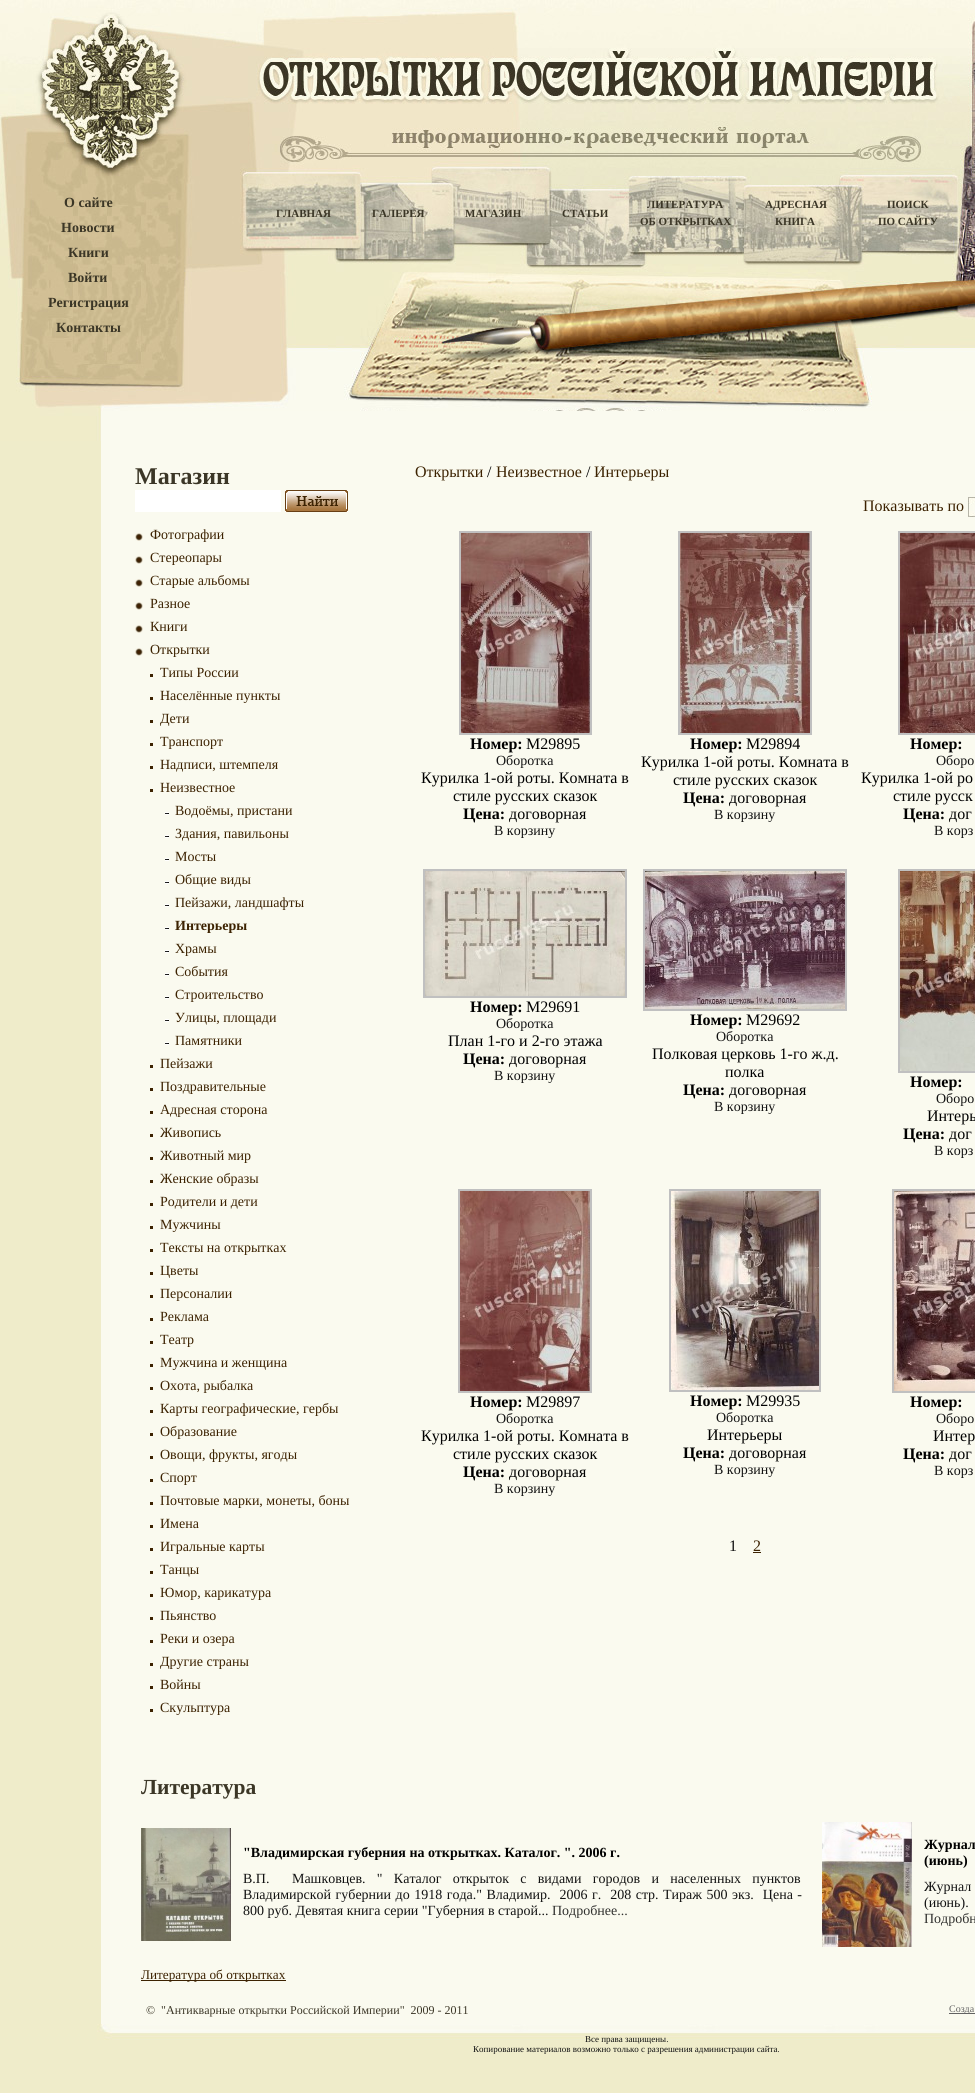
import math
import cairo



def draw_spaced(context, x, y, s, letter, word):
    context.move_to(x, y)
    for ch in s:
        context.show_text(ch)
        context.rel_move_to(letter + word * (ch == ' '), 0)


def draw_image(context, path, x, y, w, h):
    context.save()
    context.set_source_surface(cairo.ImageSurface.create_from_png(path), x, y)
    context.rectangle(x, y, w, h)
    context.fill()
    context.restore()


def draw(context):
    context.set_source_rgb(239 / 255, 236 / 255, 202 / 255)
    context.paint()
    draw_image(context, "images/1.png", 0, 0, 975, 441)
    context.set_source_rgb(250 / 255, 250 / 255, 239 / 255)
    context.rectangle(101, 411, 874, 1613)
    context.fill()
    context.set_source_rgb(1, 1, 1)
    context.rectangle(135, 490, 146, 22)
    context.fill()
    draw_image(context, "images/2.png", 285, 490, 63, 22)
    draw_image(context, "images/3.png", 135, 533, 8, 8)
    draw_image(context, "images/3.png", 135, 556, 8, 8)
    draw_image(context, "images/3.png", 135, 579, 8, 8)
    draw_image(context, "images/3.png", 135, 602, 8, 8)
    draw_image(context, "images/3.png", 135, 625, 8, 8)
    draw_image(context, "images/3.png", 135, 648, 8, 8)
    context.set_source_rgb(60 / 255, 34 / 255, 1 / 255)
    context.rectangle(150, 674, 3, 3)
    context.fill()
    context.rectangle(150, 697, 3, 3)
    context.fill()
    context.rectangle(150, 720, 3, 3)
    context.fill()
    context.rectangle(150, 743, 3, 3)
    context.fill()
    context.rectangle(150, 766, 3, 3)
    context.fill()
    context.rectangle(150, 789, 3, 3)
    context.fill()
    draw_image(context, "images/4.png", 165, 812, 4, 3)
    draw_image(context, "images/4.png", 165, 835, 4, 3)
    draw_image(context, "images/4.png", 165, 858, 4, 3)
    draw_image(context, "images/4.png", 165, 881, 4, 3)
    draw_image(context, "images/4.png", 165, 904, 4, 3)
    draw_image(context, "images/4.png", 165, 927, 4, 3)
    draw_image(context, "images/4.png", 165, 950, 4, 3)
    draw_image(context, "images/4.png", 165, 973, 4, 3)
    draw_image(context, "images/4.png", 165, 996, 4, 3)
    draw_image(context, "images/4.png", 165, 1019, 4, 3)
    draw_image(context, "images/4.png", 165, 1042, 4, 3)
    context.rectangle(150, 1065, 3, 3)
    context.fill()
    context.rectangle(150, 1088, 3, 3)
    context.fill()
    context.rectangle(150, 1111, 3, 3)
    context.fill()
    context.rectangle(150, 1134, 3, 3)
    context.fill()
    context.rectangle(150, 1157, 3, 3)
    context.fill()
    context.rectangle(150, 1180, 3, 3)
    context.fill()
    context.rectangle(150, 1203, 3, 3)
    context.fill()
    context.rectangle(150, 1226, 3, 3)
    context.fill()
    context.rectangle(150, 1249, 3, 3)
    context.fill()
    context.rectangle(150, 1272, 3, 3)
    context.fill()
    context.rectangle(150, 1295, 3, 3)
    context.fill()
    context.rectangle(150, 1318, 3, 3)
    context.fill()
    context.rectangle(150, 1341, 3, 3)
    context.fill()
    context.rectangle(150, 1364, 3, 3)
    context.fill()
    context.rectangle(150, 1387, 3, 3)
    context.fill()
    context.rectangle(150, 1410, 3, 3)
    context.fill()
    context.rectangle(150, 1433, 3, 3)
    context.fill()
    context.rectangle(150, 1456, 3, 3)
    context.fill()
    context.rectangle(150, 1479, 3, 3)
    context.fill()
    context.rectangle(150, 1502, 3, 3)
    context.fill()
    context.rectangle(150, 1525, 3, 3)
    context.fill()
    context.rectangle(150, 1548, 3, 3)
    context.fill()
    context.rectangle(150, 1571, 3, 3)
    context.fill()
    context.rectangle(150, 1594, 3, 3)
    context.fill()
    context.rectangle(150, 1617, 3, 3)
    context.fill()
    context.rectangle(150, 1640, 3, 3)
    context.fill()
    context.rectangle(150, 1663, 3, 3)
    context.fill()
    context.rectangle(150, 1686, 3, 3)
    context.fill()
    context.rectangle(150, 1709, 3, 3)
    context.fill()
    draw_image(context, "images/5.png", 968, 497, 7, 20)
    context.rectangle(460, 532, 131, 202)
    context.set_source_rgb(192 / 255, 192 / 255, 192 / 255)
    context.stroke()
    draw_image(context, "images/6.png", 461, 533, 129, 200)
    context.rectangle(679, 532, 132, 202)
    context.stroke()
    draw_image(context, "images/7.png", 680, 533, 130, 200)
    context.rectangle(899, 532, 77, 202)
    context.stroke()
    draw_image(context, "images/8.png", 900, 533, 75, 200)
    context.rectangle(424, 870, 202, 127)
    context.stroke()
    draw_image(context, "images/9.png", 425, 871, 200, 125)
    context.rectangle(644, 870, 202, 140)
    context.stroke()
    draw_image(context, "images/10.png", 645, 871, 200, 138)
    context.rectangle(899, 870, 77, 202)
    context.stroke()
    draw_image(context, "images/11.png", 900, 871, 75, 200)
    context.rectangle(459, 1190, 132, 202)
    context.stroke()
    draw_image(context, "images/12.png", 460, 1191, 130, 200)
    context.rectangle(670, 1190, 150, 201)
    context.stroke()
    draw_image(context, "images/13.png", 671, 1191, 148, 199)
    context.rectangle(893, 1190, 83, 202)
    context.stroke()
    draw_image(context, "images/14.png", 894, 1191, 81, 200)
    context.set_source_rgb(60 / 255, 34 / 255, 1 / 255)
    context.rectangle(753, 1552, 8, 1)
    context.fill()
    draw_image(context, "images/15.png", 141, 1828, 90, 113)
    draw_image(context, "images/16.png", 822, 1822, 90, 125)
    context.rectangle(141, 1980, 145, 1)
    context.fill()
    context.set_source_rgb(98 / 255, 98 / 255, 98 / 255)
    context.rectangle(949, 2013, 26, 1)
    context.fill()
    draw_image(context, "images/17.png", 97, 2024, 878, 16)
    context.select_font_face("Liberation Serif", cairo.FontSlant.NORMAL, cairo.FontWeight.BOLD)
    context.set_font_size(14)
    context.set_source_rgb(59 / 255, 54 / 255, 38 / 255)
    context.move_to(64, 207)
    context.show_text("О сайте")
    context.move_to(61, 232)
    context.show_text("Новости")
    context.move_to(68, 257)
    context.show_text("Книги")
    context.move_to(68, 282)
    context.show_text("Войти")
    context.move_to(48, 307)
    context.show_text("Регистрация")
    context.move_to(56, 332)
    context.show_text("Контакты")
    context.set_font_size(11)
    context.move_to(276, 217)
    context.show_text("ГЛАВНАЯ")
    context.move_to(372, 217)
    context.show_text("ГАЛЕРЕЯ")
    context.move_to(465, 217)
    context.show_text("МАГАЗИН")
    context.move_to(562, 217)
    context.show_text("СТАТЬИ")
    context.move_to(647, 208)
    context.show_text("ЛИТЕРАТУРА")
    context.move_to(640, 225)
    context.show_text("ОБ ОТКРЫТКАХ")
    context.move_to(765, 208)
    context.show_text("АДРЕСНАЯ")
    context.move_to(775, 225)
    context.show_text("КНИГА")
    context.move_to(887, 208)
    context.show_text("ПОИСК")
    context.move_to(878, 225)
    context.show_text("ПО САЙТУ")
    context.set_font_size(24)
    context.move_to(135, 484)
    context.show_text("Магазин")
    context.select_font_face("Liberation Serif")
    context.set_font_size(14)
    context.set_source_rgb(60 / 255, 34 / 255, 1 / 255)
    context.move_to(150, 539)
    context.show_text("Фотографии")
    context.move_to(150, 562)
    context.show_text("Стереопары")
    context.move_to(150, 585)
    context.show_text("Старые альбомы")
    context.move_to(150, 608)
    context.show_text("Разное")
    context.move_to(150, 631)
    context.show_text("Книги")
    context.move_to(150, 654)
    context.show_text("Открытки")
    context.move_to(160, 677)
    context.show_text("Типы России")
    context.move_to(160, 700)
    context.show_text("Населённые пункты")
    context.move_to(160, 723)
    context.show_text("Дети")
    context.move_to(160, 746)
    context.show_text("Транспорт")
    context.move_to(160, 769)
    context.show_text("Надписи, штемпеля")
    context.move_to(160, 792)
    context.show_text("Неизвестное")
    context.move_to(175, 815)
    context.show_text("Водоёмы, пристани")
    context.move_to(175, 838)
    context.show_text("Здания, павильоны")
    context.move_to(175, 861)
    context.show_text("Мосты")
    context.move_to(175, 884)
    context.show_text("Общие виды")
    context.move_to(175, 907)
    context.show_text("Пейзажи, ландшафты")
    context.select_font_face("Liberation Serif", cairo.FontSlant.NORMAL, cairo.FontWeight.BOLD)
    context.move_to(175, 930)
    context.show_text("Интерьеры")
    context.select_font_face("Liberation Serif")
    context.move_to(175, 953)
    context.show_text("Храмы")
    context.move_to(175, 976)
    context.show_text("События")
    context.move_to(175, 999)
    context.show_text("Строительство")
    context.move_to(175, 1022)
    context.show_text("Улицы, площади")
    context.move_to(175, 1045)
    context.show_text("Памятники")
    context.move_to(160, 1068)
    context.show_text("Пейзажи")
    context.move_to(160, 1091)
    context.show_text("Поздравительные")
    context.move_to(160, 1114)
    context.show_text("Адресная сторона")
    context.move_to(160, 1137)
    context.show_text("Живопись")
    context.move_to(160, 1160)
    context.show_text("Животный мир")
    context.move_to(160, 1183)
    context.show_text("Женские образы")
    context.move_to(160, 1206)
    context.show_text("Родители и дети")
    context.move_to(160, 1229)
    context.show_text("Мужчины")
    context.move_to(160, 1252)
    context.show_text("Тексты на открытках")
    context.move_to(160, 1275)
    context.show_text("Цветы")
    context.move_to(160, 1298)
    context.show_text("Персоналии")
    context.move_to(160, 1321)
    context.show_text("Реклама")
    context.move_to(160, 1344)
    context.show_text("Театр")
    context.move_to(160, 1367)
    context.show_text("Мужчина и женщина")
    context.move_to(160, 1390)
    context.show_text("Охота, рыбалка")
    context.move_to(160, 1413)
    context.show_text("Карты географические, гербы")
    context.move_to(160, 1436)
    context.show_text("Образование")
    context.move_to(160, 1459)
    context.show_text("Овощи, фрукты, ягоды")
    context.move_to(160, 1482)
    context.show_text("Спорт")
    context.move_to(160, 1505)
    context.show_text("Почтовые марки, монеты, боны")
    context.move_to(160, 1528)
    context.show_text("Имена")
    context.move_to(160, 1551)
    context.show_text("Игральные карты")
    context.move_to(160, 1574)
    context.show_text("Танцы")
    context.move_to(160, 1597)
    context.show_text("Юмор, карикатура")
    context.move_to(160, 1620)
    context.show_text("Пьянство")
    context.move_to(160, 1643)
    context.show_text("Реки и озера")
    context.move_to(160, 1666)
    context.show_text("Другие страны")
    context.move_to(160, 1689)
    context.show_text("Войны")
    context.move_to(160, 1712)
    context.show_text("Скульптура")
    context.set_font_size(16)
    context.move_to(415, 477)
    context.show_text("Открытки")
    context.set_source_rgb(0, 0, 0)
    context.move_to(487, 477)
    context.show_text("/")
    context.set_source_rgb(60 / 255, 34 / 255, 1 / 255)
    context.move_to(496, 477)
    context.show_text("Неизвестное")
    context.set_source_rgb(0, 0, 0)
    context.move_to(586, 477)
    context.show_text("/")
    context.set_source_rgb(60 / 255, 34 / 255, 1 / 255)
    context.move_to(594, 477)
    context.show_text("Интерьеры")
    context.move_to(863, 511)
    context.show_text("Показывать по")
    context.select_font_face("Liberation Serif", cairo.FontSlant.NORMAL, cairo.FontWeight.BOLD)
    context.set_source_rgb(0, 0, 0)
    context.move_to(470, 749)
    context.show_text("Номер:")
    context.select_font_face("Liberation Serif")
    context.move_to(526, 749)
    context.show_text("M29895")
    context.set_font_size(14)
    context.set_source_rgb(18 / 255, 18 / 255, 18 / 255)
    context.move_to(496, 765)
    context.show_text("Оборотка")
    context.set_font_size(16)
    context.set_source_rgb(0, 0, 0)
    context.move_to(421, 783)
    context.show_text("Курилка 1-ой роты. Комната в")
    context.move_to(453, 801)
    context.show_text("стиле русских сказок")
    context.select_font_face("Liberation Serif", cairo.FontSlant.NORMAL, cairo.FontWeight.BOLD)
    context.move_to(463, 819)
    context.show_text("Цена:")
    context.select_font_face("Liberation Serif")
    context.move_to(509, 819)
    context.show_text("договорная")
    context.set_font_size(14)
    context.set_source_rgb(18 / 255, 18 / 255, 18 / 255)
    context.move_to(494, 835)
    context.show_text("В корзину")
    context.select_font_face("Liberation Serif", cairo.FontSlant.NORMAL, cairo.FontWeight.BOLD)
    context.set_font_size(16)
    context.set_source_rgb(0, 0, 0)
    context.move_to(690, 749)
    context.show_text("Номер:")
    context.select_font_face("Liberation Serif")
    context.move_to(746, 749)
    context.show_text("M29894")
    context.move_to(641, 767)
    context.show_text("Курилка 1-ой роты. Комната в")
    context.move_to(673, 785)
    context.show_text("стиле русских сказок")
    context.select_font_face("Liberation Serif", cairo.FontSlant.NORMAL, cairo.FontWeight.BOLD)
    context.move_to(683, 803)
    context.show_text("Цена:")
    context.select_font_face("Liberation Serif")
    context.move_to(729, 803)
    context.show_text("договорная")
    context.set_font_size(14)
    context.set_source_rgb(18 / 255, 18 / 255, 18 / 255)
    context.move_to(714, 819)
    context.show_text("В корзину")
    context.select_font_face("Liberation Serif", cairo.FontSlant.NORMAL, cairo.FontWeight.BOLD)
    context.set_font_size(16)
    context.set_source_rgb(0, 0, 0)
    context.move_to(910, 749)
    context.show_text("Номер:")
    context.select_font_face("Liberation Serif")
    context.set_font_size(14)
    context.set_source_rgb(18 / 255, 18 / 255, 18 / 255)
    context.move_to(936, 765)
    context.show_text("Оборо")
    context.set_font_size(16)
    context.set_source_rgb(0, 0, 0)
    context.move_to(861, 783)
    context.show_text("Курилка 1-ой ро")
    context.move_to(893, 801)
    context.show_text("стиле русск")
    context.select_font_face("Liberation Serif", cairo.FontSlant.NORMAL, cairo.FontWeight.BOLD)
    context.move_to(903, 819)
    context.show_text("Цена:")
    context.select_font_face("Liberation Serif")
    context.move_to(949, 819)
    context.show_text("дог")
    context.set_font_size(14)
    context.set_source_rgb(18 / 255, 18 / 255, 18 / 255)
    context.move_to(934, 835)
    context.show_text("В корз")
    context.select_font_face("Liberation Serif", cairo.FontSlant.NORMAL, cairo.FontWeight.BOLD)
    context.set_font_size(16)
    context.set_source_rgb(0, 0, 0)
    context.move_to(470, 1012)
    context.show_text("Номер:")
    context.select_font_face("Liberation Serif")
    context.move_to(526, 1012)
    context.show_text("M29691")
    context.set_font_size(14)
    context.set_source_rgb(18 / 255, 18 / 255, 18 / 255)
    context.move_to(496, 1028)
    context.show_text("Оборотка")
    context.set_font_size(16)
    context.set_source_rgb(0, 0, 0)
    context.move_to(448, 1046)
    context.show_text("План 1-го и 2-го этажа")
    context.select_font_face("Liberation Serif", cairo.FontSlant.NORMAL, cairo.FontWeight.BOLD)
    context.move_to(463, 1064)
    context.show_text("Цена:")
    context.select_font_face("Liberation Serif")
    context.move_to(509, 1064)
    context.show_text("договорная")
    context.set_font_size(14)
    context.set_source_rgb(18 / 255, 18 / 255, 18 / 255)
    context.move_to(494, 1080)
    context.show_text("В корзину")
    context.select_font_face("Liberation Serif", cairo.FontSlant.NORMAL, cairo.FontWeight.BOLD)
    context.set_font_size(16)
    context.set_source_rgb(0, 0, 0)
    context.move_to(690, 1025)
    context.show_text("Номер:")
    context.select_font_face("Liberation Serif")
    context.move_to(746, 1025)
    context.show_text("M29692")
    context.set_font_size(14)
    context.set_source_rgb(18 / 255, 18 / 255, 18 / 255)
    context.move_to(716, 1041)
    context.show_text("Оборотка")
    context.set_font_size(16)
    context.set_source_rgb(0, 0, 0)
    context.move_to(652, 1059)
    context.show_text("Полковая церковь 1-го ж.д.")
    context.move_to(725, 1077)
    context.show_text("полка")
    context.select_font_face("Liberation Serif", cairo.FontSlant.NORMAL, cairo.FontWeight.BOLD)
    context.move_to(683, 1095)
    context.show_text("Цена:")
    context.select_font_face("Liberation Serif")
    context.move_to(729, 1095)
    context.show_text("договорная")
    context.set_font_size(14)
    context.set_source_rgb(18 / 255, 18 / 255, 18 / 255)
    context.move_to(714, 1111)
    context.show_text("В корзину")
    context.select_font_face("Liberation Serif", cairo.FontSlant.NORMAL, cairo.FontWeight.BOLD)
    context.set_font_size(16)
    context.set_source_rgb(0, 0, 0)
    context.move_to(910, 1087)
    context.show_text("Номер:")
    context.select_font_face("Liberation Serif")
    context.set_font_size(14)
    context.set_source_rgb(18 / 255, 18 / 255, 18 / 255)
    context.move_to(936, 1103)
    context.show_text("Оборо")
    context.set_font_size(16)
    context.set_source_rgb(0, 0, 0)
    context.move_to(927, 1121)
    context.show_text("Интерь")
    context.select_font_face("Liberation Serif", cairo.FontSlant.NORMAL, cairo.FontWeight.BOLD)
    context.move_to(903, 1139)
    context.show_text("Цена:")
    context.select_font_face("Liberation Serif")
    context.move_to(949, 1139)
    context.show_text("дог")
    context.set_font_size(14)
    context.set_source_rgb(18 / 255, 18 / 255, 18 / 255)
    context.move_to(934, 1155)
    context.show_text("В корз")
    context.select_font_face("Liberation Serif", cairo.FontSlant.NORMAL, cairo.FontWeight.BOLD)
    context.set_font_size(16)
    context.set_source_rgb(0, 0, 0)
    context.move_to(470, 1407)
    context.show_text("Номер:")
    context.select_font_face("Liberation Serif")
    context.move_to(526, 1407)
    context.show_text("M29897")
    context.set_font_size(14)
    context.set_source_rgb(18 / 255, 18 / 255, 18 / 255)
    context.move_to(496, 1423)
    context.show_text("Оборотка")
    context.set_font_size(16)
    context.set_source_rgb(0, 0, 0)
    context.move_to(421, 1441)
    context.show_text("Курилка 1-ой роты. Комната в")
    context.move_to(453, 1459)
    context.show_text("стиле русских сказок")
    context.select_font_face("Liberation Serif", cairo.FontSlant.NORMAL, cairo.FontWeight.BOLD)
    context.move_to(463, 1477)
    context.show_text("Цена:")
    context.select_font_face("Liberation Serif")
    context.move_to(509, 1477)
    context.show_text("договорная")
    context.set_font_size(14)
    context.set_source_rgb(18 / 255, 18 / 255, 18 / 255)
    context.move_to(494, 1493)
    context.show_text("В корзину")
    context.select_font_face("Liberation Serif", cairo.FontSlant.NORMAL, cairo.FontWeight.BOLD)
    context.set_font_size(16)
    context.set_source_rgb(0, 0, 0)
    context.move_to(690, 1406)
    context.show_text("Номер:")
    context.select_font_face("Liberation Serif")
    context.move_to(746, 1406)
    context.show_text("M29935")
    context.set_font_size(14)
    context.set_source_rgb(18 / 255, 18 / 255, 18 / 255)
    context.move_to(716, 1422)
    context.show_text("Оборотка")
    context.set_font_size(16)
    context.set_source_rgb(0, 0, 0)
    context.move_to(707, 1440)
    context.show_text("Интерьеры")
    context.select_font_face("Liberation Serif", cairo.FontSlant.NORMAL, cairo.FontWeight.BOLD)
    context.move_to(683, 1458)
    context.show_text("Цена:")
    context.select_font_face("Liberation Serif")
    context.move_to(729, 1458)
    context.show_text("договорная")
    context.set_font_size(14)
    context.set_source_rgb(18 / 255, 18 / 255, 18 / 255)
    context.move_to(714, 1474)
    context.show_text("В корзину")
    context.select_font_face("Liberation Serif", cairo.FontSlant.NORMAL, cairo.FontWeight.BOLD)
    context.set_font_size(16)
    context.set_source_rgb(0, 0, 0)
    context.move_to(910, 1407)
    context.show_text("Номер:")
    context.select_font_face("Liberation Serif")
    context.set_font_size(14)
    context.set_source_rgb(18 / 255, 18 / 255, 18 / 255)
    context.move_to(936, 1423)
    context.show_text("Оборо")
    context.set_font_size(16)
    context.set_source_rgb(0, 0, 0)
    context.move_to(933, 1441)
    context.show_text("Интер")
    context.select_font_face("Liberation Serif", cairo.FontSlant.NORMAL, cairo.FontWeight.BOLD)
    context.move_to(903, 1459)
    context.show_text("Цена:")
    context.select_font_face("Liberation Serif")
    context.move_to(949, 1459)
    context.show_text("дог")
    context.set_font_size(14)
    context.set_source_rgb(18 / 255, 18 / 255, 18 / 255)
    context.move_to(934, 1475)
    context.show_text("В корз")
    context.set_font_size(16)
    context.move_to(729, 1551)
    context.show_text("1")
    context.set_source_rgb(60 / 255, 34 / 255, 1 / 255)
    context.move_to(753, 1551)
    context.show_text("2")
    context.select_font_face("Liberation Serif", cairo.FontSlant.NORMAL, cairo.FontWeight.BOLD)
    context.set_font_size(21.5)
    context.set_source_rgb(59 / 255, 54 / 255, 38 / 255)
    context.move_to(141, 1794)
    context.show_text("Литература")
    context.set_font_size(14)
    context.set_source_rgb(0, 0, 0)
    context.move_to(243, 1857)
    context.show_text("\"Владимирская губерния на открытках. Каталог. \". 2006 г.")
    context.select_font_face("Liberation Serif")
    context.set_source_rgb(18 / 255, 18 / 255, 18 / 255)
    draw_spaced(context, 243, 1883, "В.П.  Машковцев. \" Каталог открыток с видами городов и населенных пунктов", 0, 7.75)
    draw_spaced(context, 243, 1899, "Владимирской губернии до 1918 года.\" Владимир.  2006 г.  208 стр. Тираж 500 экз.  Цена -", 0, 1)
    context.move_to(243, 1915)
    context.show_text("800 руб. Девятая книга серии \"Губерния в старой...")
    context.set_source_rgb(49 / 255, 49 / 255, 47 / 255)
    context.move_to(552, 1915)
    context.show_text("Подробнее...")
    context.select_font_face("Liberation Serif", cairo.FontSlant.NORMAL, cairo.FontWeight.BOLD)
    context.set_source_rgb(0, 0, 0)
    context.move_to(924, 1849)
    context.show_text("Журнал")
    context.move_to(924, 1865)
    context.show_text("(июнь)")
    context.select_font_face("Liberation Serif")
    context.set_source_rgb(18 / 255, 18 / 255, 18 / 255)
    draw_spaced(context, 924, 1891, "Журнал", 0, 5)
    draw_spaced(context, 924, 1907, "(июнь).", 0, 12)
    context.set_source_rgb(49 / 255, 49 / 255, 47 / 255)
    context.move_to(924, 1923)
    context.show_text("Подробн")
    context.set_font_size(13.25)
    context.set_source_rgb(60 / 255, 34 / 255, 1 / 255)
    context.move_to(141, 1979)
    context.show_text("Литература об открытках")
    context.set_font_size(12)
    context.set_source_rgb(59 / 255, 54 / 255, 38 / 255)
    context.move_to(146, 2014)
    context.show_text("©  \"Антикварные открытки Российской Империи\"  2009 - 2011")
    context.set_font_size(10)
    context.set_source_rgb(98 / 255, 98 / 255, 98 / 255)
    context.move_to(949, 2012)
    context.show_text("Созда")
    context.set_font_size(9)
    context.set_source_rgb(18 / 255, 18 / 255, 18 / 255)
    context.move_to(585, 2042)
    context.show_text("Все права защищены.")
    context.move_to(473, 2052)
    context.show_text("Копирование материалов возможно только c разрешения администрации сайта.")


surface = cairo.ImageSurface(cairo.Format.RGB24, 975, 2093)
context = cairo.Context(surface)
options = cairo.FontOptions()
options.set_hint_metrics(cairo.HintMetrics.OFF)
options.set_hint_style(cairo.HintStyle.NONE)
context.set_font_options(options)
context.set_miter_limit(4)
draw(context)
surface.write_to_png("out.png")
